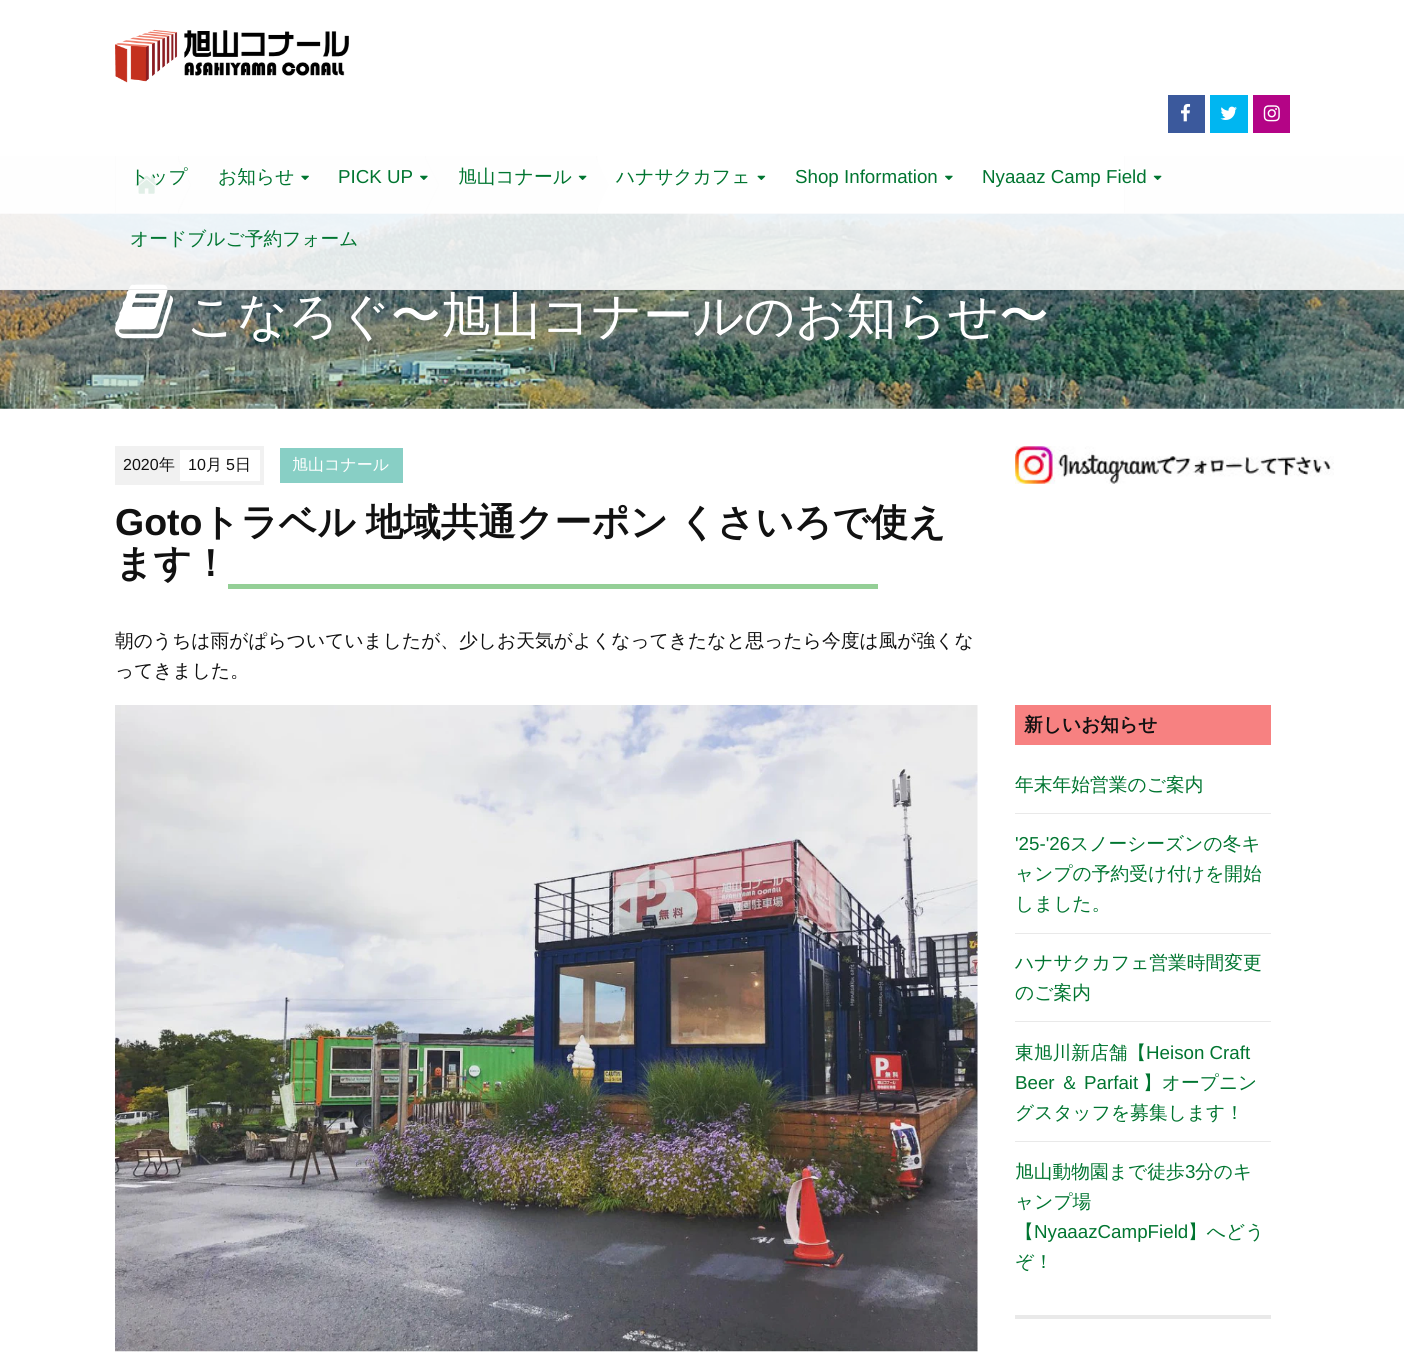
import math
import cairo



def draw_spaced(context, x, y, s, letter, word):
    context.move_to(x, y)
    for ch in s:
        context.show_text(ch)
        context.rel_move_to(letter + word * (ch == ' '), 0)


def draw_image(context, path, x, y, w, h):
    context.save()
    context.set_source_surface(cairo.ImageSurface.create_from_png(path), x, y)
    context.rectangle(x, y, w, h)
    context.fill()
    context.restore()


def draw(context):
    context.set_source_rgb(1, 1, 1)
    context.paint()
    context.set_source_rgb(246 / 255, 246 / 255, 246 / 255)
    context.rectangle(0, 156, 1404, 57)
    context.fill()
    context.set_source_rgb(233 / 255, 233 / 255, 233 / 255)
    context.rectangle(0, 213, 1404, 1)
    context.fill()
    context.rectangle(115, 156, 1, 57)
    context.fill()
    context.rectangle(178, 156, 1, 57)
    context.fill()
    context.new_path()
    context.move_to(178, 214)
    context.line_to(178, 156)
    context.line_to(191, 185)
    context.close_path()
    context.fill()
    context.rectangle(425, 156, 1, 57)
    context.fill()
    context.new_path()
    context.move_to(425, 214)
    context.line_to(425, 156)
    context.line_to(439, 185)
    context.close_path()
    context.fill()
    context.rectangle(596, 156, 1, 57)
    context.fill()
    context.new_path()
    context.move_to(596, 214)
    context.line_to(596, 156)
    context.line_to(610, 185)
    context.close_path()
    context.fill()
    draw_image(context, "images/11.png", 0, 213, 1404, 196)
    context.set_source_rgb(246 / 255, 246 / 255, 246 / 255)
    context.new_path()
    context.move_to(176, 214)
    context.line_to(176, 156)
    context.line_to(190, 185)
    context.close_path()
    context.fill()
    draw_image(context, "images/1.png", 135, 175, 23, 19)
    context.new_path()
    context.move_to(424, 214)
    context.line_to(424, 156)
    context.line_to(438, 185)
    context.close_path()
    context.fill()
    context.set_source_rgb(1, 1, 1)
    context.rectangle(598, 156, 526, 57)
    context.fill()
    context.set_source_rgb(246 / 255, 246 / 255, 246 / 255)
    context.new_path()
    context.move_to(595, 214)
    context.line_to(595, 156)
    context.line_to(609, 185)
    context.close_path()
    context.fill()
    context.set_source_rgb(233 / 255, 233 / 255, 233 / 255)
    context.rectangle(1124, 156, 1, 57)
    context.fill()
    draw_image(context, "images/12.png", 115, 284, 58, 55)
    context.set_source_rgba(1, 1, 1, 0.88)
    context.rectangle(0, 156, 1404, 134)
    context.fill()
    context.set_source_rgb(233 / 255, 233 / 255, 233 / 255)
    context.new_path()
    context.move_to(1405, 290)
    context.line_to(0, 290)
    context.line_to(1, 289)
    context.line_to(1404, 289)
    context.close_path()
    context.fill()
    draw_image(context, "images/2.png", 115, 29, 234, 54)
    context.set_source_rgb(59 / 255, 89 / 255, 156 / 255)
    context.rectangle(1168, 95, 37, 38)
    context.fill()
    draw_image(context, "images/3.png", 1181, 103, 10, 19)
    context.set_source_rgb(0, 182 / 255, 241 / 255)
    context.rectangle(1210, 95, 38, 38)
    context.fill()
    draw_image(context, "images/4.png", 1220, 106, 17, 14)
    context.set_source_rgb(180 / 255, 4 / 255, 134 / 255)
    context.rectangle(1253, 95, 37, 38)
    context.fill()
    draw_image(context, "images/5.png", 1263, 105, 17, 17)
    draw_image(context, "images/6.png", 301, 175, 8, 5)
    draw_image(context, "images/7.png", 420, 175, 8, 5)
    draw_image(context, "images/8.png", 578, 175, 9, 5)
    draw_image(context, "images/9.png", 757, 175, 9, 5)
    draw_image(context, "images/10.png", 945, 175, 8, 5)
    draw_image(context, "images/8.png", 1153, 175, 9, 5)
    context.set_source_rgb(241 / 255, 241 / 255, 241 / 255)
    context.rectangle(115, 446, 149, 39)
    context.fill()
    context.set_source_rgb(1, 1, 1)
    context.rectangle(180, 450, 80, 31)
    context.fill()
    context.set_source_rgb(136 / 255, 207 / 255, 197 / 255)
    context.rectangle(280, 448, 123, 35)
    context.fill()
    context.set_source_rgb(148 / 255, 207 / 255, 150 / 255)
    context.rectangle(228, 584, 650, 5)
    context.fill()
    draw_image(context, "images/13.png", 115, 705, 863, 647)
    draw_image(context, "images/14.png", 1015, 446, 319, 38)
    context.set_source_rgb(233 / 255, 233 / 255, 233 / 255)
    context.rectangle(1015, 1315, 256, 4)
    context.fill()
    context.set_source_rgb(247 / 255, 129 / 255, 129 / 255)
    context.rectangle(1015, 705, 256, 40)
    context.fill()
    context.set_source_rgb(233 / 255, 233 / 255, 233 / 255)
    context.rectangle(1015, 813, 256, 1)
    context.fill()
    context.rectangle(1015, 933, 256, 1)
    context.fill()
    context.rectangle(1015, 1021, 256, 1)
    context.fill()
    context.rectangle(1015, 1141, 256, 1)
    context.fill()
    context.select_font_face("WenQuanYi Zen Hei Medium")
    context.set_font_size(18.75)
    context.set_source_rgb(0, 117 / 255, 48 / 255)
    context.move_to(130, 183)
    context.show_text("トップ")
    context.move_to(218, 183)
    context.show_text("お知らせ")
    context.select_font_face("Liberation Sans")
    context.move_to(338, 183)
    context.show_text("PICK UP")
    context.select_font_face("WenQuanYi Zen Hei Medium")
    context.move_to(458, 183)
    context.show_text("旭山コナール")
    context.move_to(616, 183)
    context.show_text("ハナサクカフェ")
    context.select_font_face("Liberation Sans")
    context.move_to(795, 183)
    context.show_text("Shop Information")
    context.move_to(982, 183)
    context.show_text("Nyaaaz Camp Field")
    context.select_font_face("WenQuanYi Zen Hei Medium")
    context.move_to(130, 245)
    context.show_text("オードブルご予約フォーム")
    context.set_font_size(50)
    context.set_source_rgb(1, 1, 1)
    context.move_to(186, 333)
    context.show_text("こなろぐ〜旭山コナールのお知らせ〜")
    context.select_font_face("Liberation Sans")
    context.set_font_size(16)
    context.set_source_rgb(17 / 255, 17 / 255, 17 / 255)
    context.move_to(123, 470)
    context.show_text("2020")
    context.select_font_face("WenQuanYi Zen Hei Medium")
    context.move_to(159, 470)
    context.show_text("年")
    context.select_font_face("Liberation Sans")
    context.move_to(188, 470)
    context.show_text("10")
    context.select_font_face("WenQuanYi Zen Hei Medium")
    context.move_to(206, 470)
    context.show_text("月")
    context.select_font_face("Liberation Sans")
    context.move_to(226, 470)
    context.show_text("5")
    context.select_font_face("WenQuanYi Zen Hei Medium")
    context.move_to(235, 470)
    context.show_text("日")
    context.set_source_rgb(1, 1, 1)
    context.move_to(292, 470)
    context.show_text("旭山コナール")
    context.select_font_face("Liberation Sans", cairo.FontSlant.NORMAL, cairo.FontWeight.BOLD)
    context.set_font_size(37.5)
    context.set_source_rgb(17 / 255, 17 / 255, 17 / 255)
    context.move_to(115, 535)
    context.show_text("Goto")
    context.select_font_face("WenQuanYi Zen Hei", cairo.FontSlant.NORMAL, cairo.FontWeight.BOLD)
    draw_spaced(context, 202, 535, "トラベル 地域共通クーポン くさいろで使え", 0, -1)
    context.move_to(115, 576)
    context.show_text("ます！")
    context.select_font_face("WenQuanYi Zen Hei Medium")
    context.set_font_size(18.75)
    context.move_to(115, 647)
    context.show_text("朝のうちは雨がぱらついていましたが、少しお天気がよくなってきたなと思ったら今度は風が強くな")
    context.move_to(115, 677)
    context.show_text("ってきました。")
    context.select_font_face("WenQuanYi Zen Hei", cairo.FontSlant.NORMAL, cairo.FontWeight.BOLD)
    context.move_to(1024, 731)
    context.show_text("新しいお知らせ")
    context.select_font_face("WenQuanYi Zen Hei Medium")
    context.set_source_rgb(0, 117 / 255, 48 / 255)
    context.move_to(1015, 791)
    context.show_text("年末年始営業のご案内")
    context.select_font_face("Liberation Sans")
    context.move_to(1015, 850)
    context.show_text("'25-'26")
    context.select_font_face("WenQuanYi Zen Hei Medium")
    context.move_to(1070, 850)
    context.show_text("スノーシーズンの冬キ")
    context.move_to(1015, 880)
    context.show_text("ャンプの予約受け付けを開始")
    context.move_to(1015, 910)
    context.show_text("しました。")
    context.move_to(1015, 969)
    context.show_text("ハナサクカフェ営業時間変更")
    context.move_to(1015, 999)
    context.show_text("のご案内")
    context.move_to(1015, 1059)
    context.show_text("東旭川新店舗【")
    context.select_font_face("Liberation Sans")
    context.move_to(1146, 1059)
    context.show_text("Heison Craft")
    context.move_to(1015, 1089)
    context.show_text("Beer")
    context.select_font_face("WenQuanYi Zen Hei Medium")
    context.move_to(1060, 1089)
    context.show_text("＆")
    context.select_font_face("Liberation Sans")
    context.move_to(1084, 1089)
    context.show_text("Parfait")
    context.select_font_face("WenQuanYi Zen Hei Medium")
    context.move_to(1143, 1089)
    context.show_text("】オープニン")
    context.move_to(1015, 1119)
    context.show_text("グスタッフを募集します！")
    context.move_to(1015, 1178)
    context.show_text("旭山動物園まで徒歩")
    context.select_font_face("Liberation Sans")
    context.move_to(1185, 1178)
    context.show_text("3")
    context.select_font_face("WenQuanYi Zen Hei Medium")
    context.move_to(1195, 1178)
    context.show_text("分のキ")
    context.move_to(1015, 1208)
    context.show_text("ャンプ場")
    context.move_to(1015, 1238)
    context.show_text("【")
    context.select_font_face("Liberation Sans")
    context.move_to(1034, 1238)
    context.show_text("NyaaazCampField")
    context.select_font_face("WenQuanYi Zen Hei Medium")
    context.move_to(1188, 1238)
    context.show_text("】へどう")
    context.move_to(1015, 1268)
    context.show_text("ぞ！")


surface = cairo.ImageSurface(cairo.Format.RGB24, 1404, 1356)
context = cairo.Context(surface)
options = cairo.FontOptions()
options.set_hint_metrics(cairo.HintMetrics.OFF)
options.set_hint_style(cairo.HintStyle.NONE)
context.set_font_options(options)
context.set_miter_limit(4)
draw(context)
surface.write_to_png("out.png")
